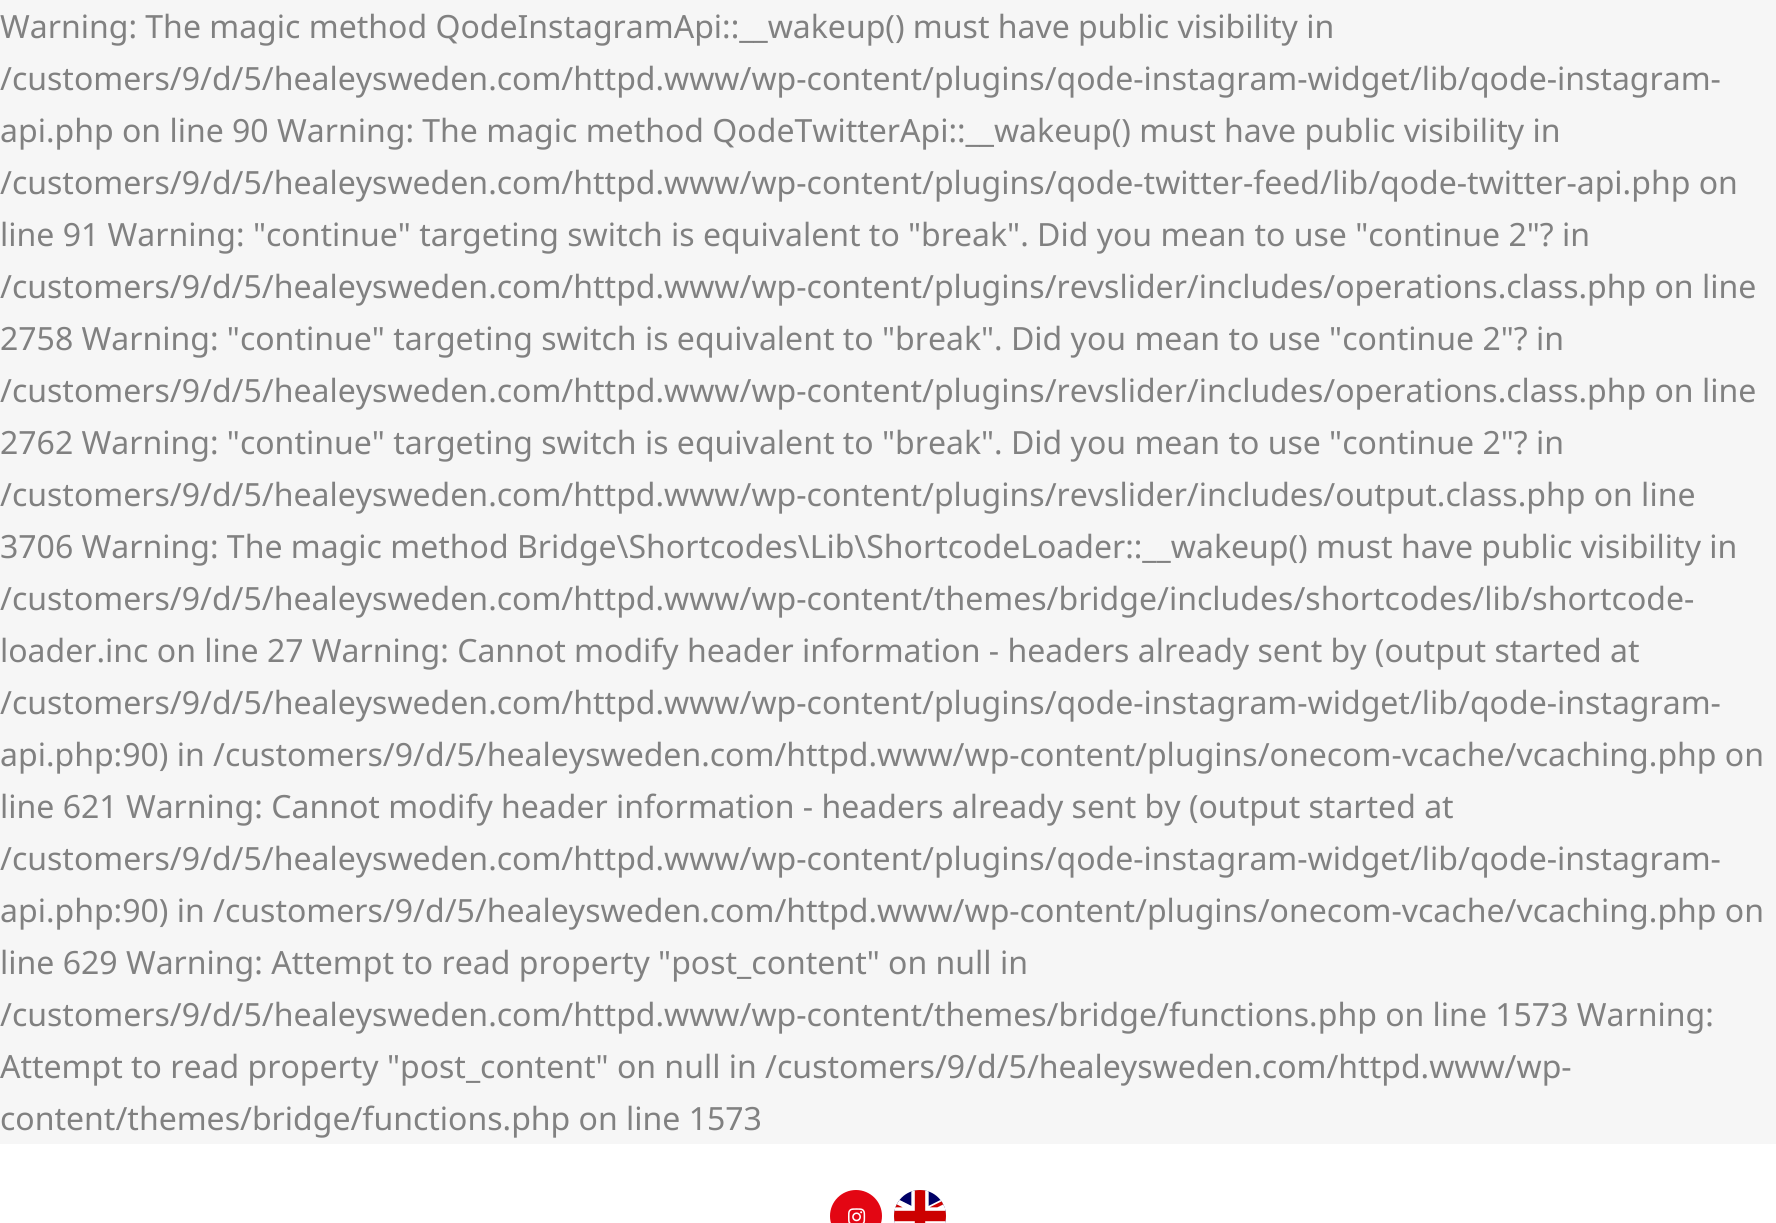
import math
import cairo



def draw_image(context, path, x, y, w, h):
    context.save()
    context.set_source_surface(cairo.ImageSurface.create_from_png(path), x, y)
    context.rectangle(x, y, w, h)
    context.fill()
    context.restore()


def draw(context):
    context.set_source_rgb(246 / 255, 246 / 255, 246 / 255)
    context.paint()
    context.set_source_rgb(1, 1, 1)
    context.rectangle(0, 1144, 1776, 79)
    context.fill()
    context.set_source_rgb(227 / 255, 6 / 255, 19 / 255)
    context.arc(856, 1216, 26, 0, 2 * math.pi)
    context.fill()
    draw_image(context, "images/1.png", 848, 1208, 18, 15)
    draw_image(context, "images/2.png", 894, 1190, 52, 33)
    context.select_font_face("Noto Sans")
    context.set_font_size(32)
    context.set_source_rgb(129 / 255, 129 / 255, 129 / 255)
    context.move_to(0, 38)
    context.show_text("Warning: The magic method QodeInstagramApi::__wakeup() must have public visibility in")
    context.move_to(0, 90)
    context.show_text("/customers/9/d/5/healeysweden.com/httpd.www/wp-content/plugins/qode-instagram-widget/lib/qode-instagram-")
    context.move_to(0, 142)
    context.show_text("api.php on line 90 Warning: The magic method QodeTwitterApi::__wakeup() must have public visibility in")
    context.move_to(0, 194)
    context.show_text("/customers/9/d/5/healeysweden.com/httpd.www/wp-content/plugins/qode-twitter-feed/lib/qode-twitter-api.php on")
    context.move_to(0, 246)
    context.show_text("line 91 Warning: \"continue\" targeting switch is equivalent to \"break\". Did you mean to use \"continue 2\"? in")
    context.move_to(0, 298)
    context.show_text("/customers/9/d/5/healeysweden.com/httpd.www/wp-content/plugins/revslider/includes/operations.class.php on line")
    context.move_to(0, 350)
    context.show_text("2758 Warning: \"continue\" targeting switch is equivalent to \"break\". Did you mean to use \"continue 2\"? in")
    context.move_to(0, 402)
    context.show_text("/customers/9/d/5/healeysweden.com/httpd.www/wp-content/plugins/revslider/includes/operations.class.php on line")
    context.move_to(0, 454)
    context.show_text("2762 Warning: \"continue\" targeting switch is equivalent to \"break\". Did you mean to use \"continue 2\"? in")
    context.move_to(0, 506)
    context.show_text("/customers/9/d/5/healeysweden.com/httpd.www/wp-content/plugins/revslider/includes/output.class.php on line")
    context.move_to(0, 558)
    context.show_text("3706 Warning: The magic method Bridge\\Shortcodes\\Lib\\ShortcodeLoader::__wakeup() must have public visibility in")
    context.move_to(0, 610)
    context.show_text("/customers/9/d/5/healeysweden.com/httpd.www/wp-content/themes/bridge/includes/shortcodes/lib/shortcode-")
    context.move_to(0, 662)
    context.show_text("loader.inc on line 27 Warning: Cannot modify header information - headers already sent by (output started at")
    context.move_to(0, 714)
    context.show_text("/customers/9/d/5/healeysweden.com/httpd.www/wp-content/plugins/qode-instagram-widget/lib/qode-instagram-")
    context.move_to(0, 766)
    context.show_text("api.php:90) in /customers/9/d/5/healeysweden.com/httpd.www/wp-content/plugins/onecom-vcache/vcaching.php on")
    context.move_to(0, 818)
    context.show_text("line 621 Warning: Cannot modify header information - headers already sent by (output started at")
    context.move_to(0, 870)
    context.show_text("/customers/9/d/5/healeysweden.com/httpd.www/wp-content/plugins/qode-instagram-widget/lib/qode-instagram-")
    context.move_to(0, 922)
    context.show_text("api.php:90) in /customers/9/d/5/healeysweden.com/httpd.www/wp-content/plugins/onecom-vcache/vcaching.php on")
    context.move_to(0, 974)
    context.show_text("line 629 Warning: Attempt to read property \"post_content\" on null in")
    context.move_to(0, 1026)
    context.show_text("/customers/9/d/5/healeysweden.com/httpd.www/wp-content/themes/bridge/functions.php on line 1573 Warning:")
    context.move_to(0, 1078)
    context.show_text("Attempt to read property \"post_content\" on null in /customers/9/d/5/healeysweden.com/httpd.www/wp-")
    context.move_to(0, 1130)
    context.show_text("content/themes/bridge/functions.php on line 1573")


surface = cairo.ImageSurface(cairo.Format.RGB24, 1776, 1223)
context = cairo.Context(surface)
options = cairo.FontOptions()
options.set_hint_metrics(cairo.HintMetrics.OFF)
options.set_hint_style(cairo.HintStyle.NONE)
context.set_font_options(options)
context.set_miter_limit(4)
draw(context)
surface.write_to_png("out.png")
